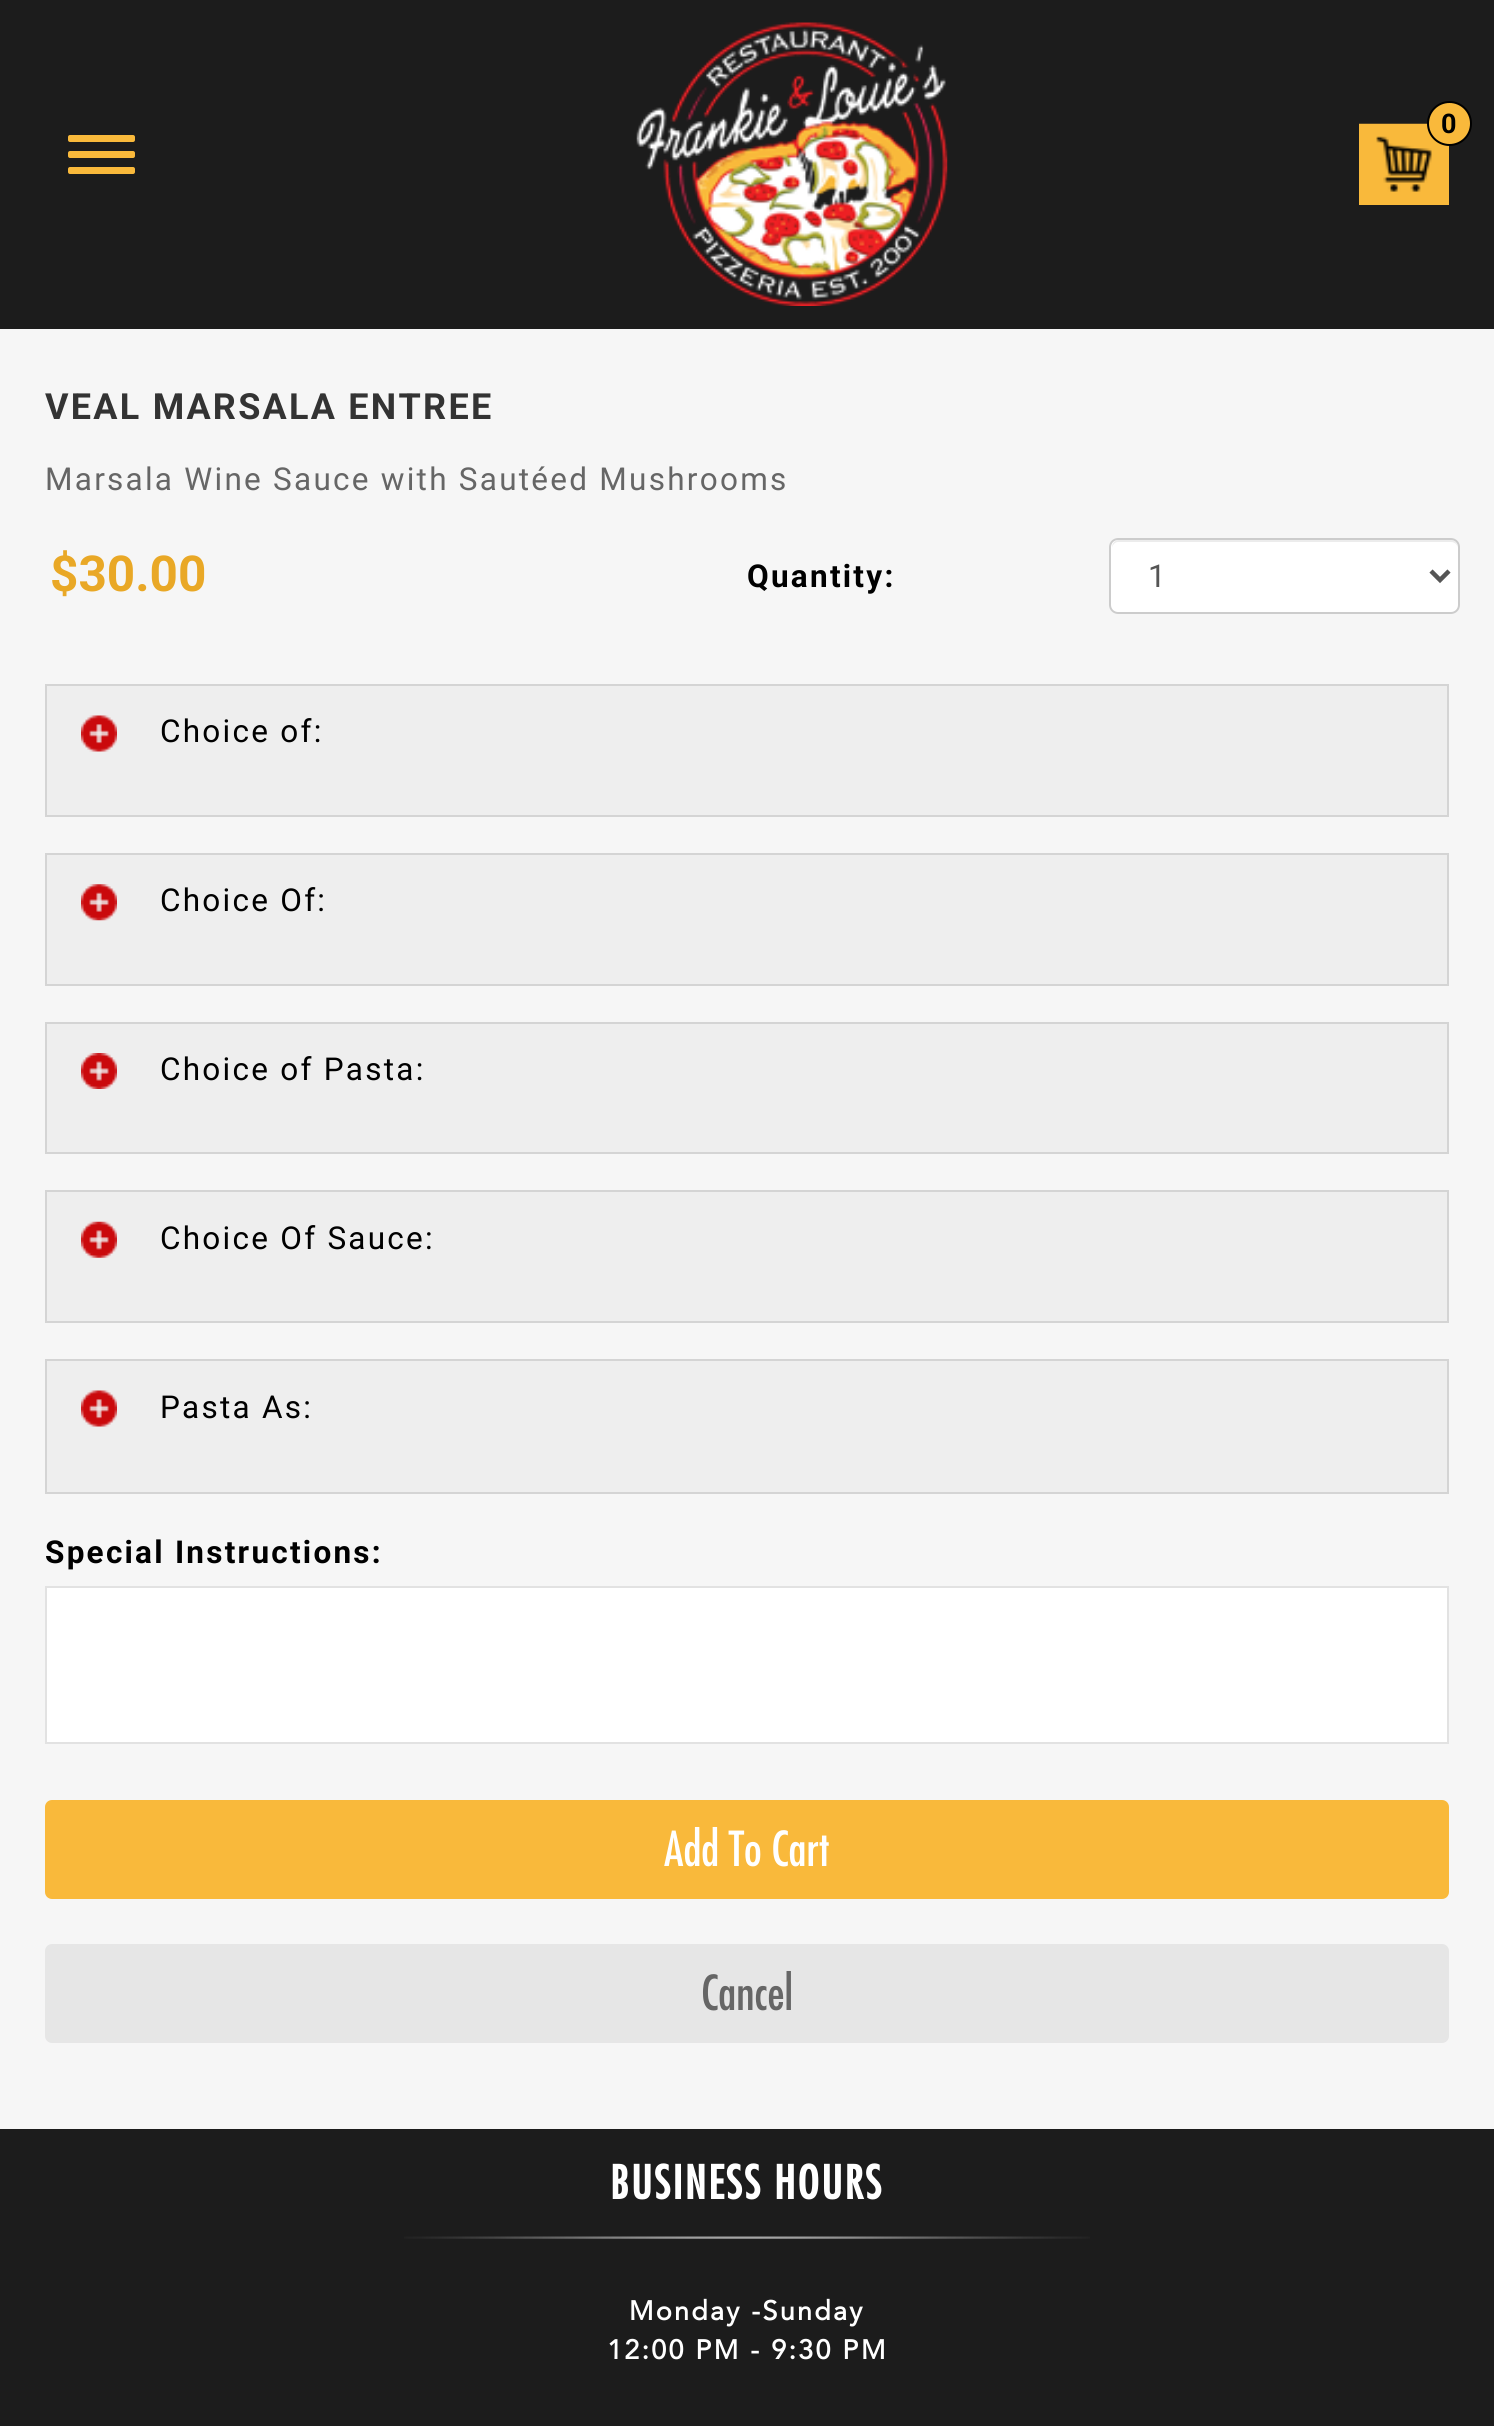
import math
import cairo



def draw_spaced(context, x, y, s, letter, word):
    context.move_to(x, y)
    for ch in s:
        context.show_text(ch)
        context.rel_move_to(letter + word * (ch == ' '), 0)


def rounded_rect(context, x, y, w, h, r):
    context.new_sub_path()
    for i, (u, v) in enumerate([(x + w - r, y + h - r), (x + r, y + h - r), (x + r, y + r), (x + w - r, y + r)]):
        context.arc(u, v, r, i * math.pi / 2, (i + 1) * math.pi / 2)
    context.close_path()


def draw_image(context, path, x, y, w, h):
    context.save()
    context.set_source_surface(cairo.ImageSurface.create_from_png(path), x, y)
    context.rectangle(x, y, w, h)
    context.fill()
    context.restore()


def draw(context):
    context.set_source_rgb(246 / 255, 246 / 255, 246 / 255)
    context.paint()
    context.set_source_rgb(28 / 255, 28 / 255, 28 / 255)
    context.rectangle(0, 0, 1494, 329)
    context.fill()
    draw_image(context, "images/1.png", 636, 22, 312, 284)
    context.set_source_rgb(249 / 255, 185 / 255, 59 / 255)
    context.rectangle(1359, 192, 90, 13)
    context.fill()
    draw_image(context, "images/2.png", 1359, 123, 90, 69)
    context.arc(1449.5, 123.5, 21.5, 0, 2 * math.pi)
    context.fill_preserve()
    context.set_source_rgb(0, 0, 0)
    context.stroke()
    context.set_source_rgb(249 / 255, 185 / 255, 59 / 255)
    rounded_rect(context, 68, 135, 67, 7, 2)
    context.fill()
    rounded_rect(context, 68, 151, 67, 7, 2)
    context.fill()
    rounded_rect(context, 68, 167, 67, 7, 2)
    context.fill()
    context.set_source_rgb(1, 1, 1)
    rounded_rect(context, 1109, 538, 351, 76, 9)
    context.fill()
    context.set_source_rgb(236 / 255, 236 / 255, 236 / 255)
    context.new_path()
    context.move_to(1118, 542)
    context.line_to(1451, 542)
    context.curve_to(1455, 542, 1458, 545, 1458, 549)
    context.curve_to(1458, 545, 1456, 540, 1451, 540)
    context.line_to(1118, 540)
    context.curve_to(1113, 541, 1112, 545, 1112, 549)
    context.curve_to(1112, 545, 1115, 542, 1118, 542)
    context.close_path()
    context.fill()
    rounded_rect(context, 1110, 539, 349, 74, 8)
    context.set_source_rgb(204 / 255, 204 / 255, 204 / 255)
    context.stroke()
    context.new_path()
    context.move_to(1431, 571)
    context.line_to(1440, 580)
    context.line_to(1449, 571)
    context.set_source_rgb(85 / 255, 85 / 255, 85 / 255)
    context.set_line_width(4.5)
    context.stroke()
    context.set_source_rgb(238 / 255, 238 / 255, 238 / 255)
    context.rectangle(47, 686, 1400, 129)
    context.fill()
    draw_image(context, "images/3.png", 81, 715, 36, 37)
    context.rectangle(46, 685, 1402, 131)
    context.set_source_rgb(212 / 255, 212 / 255, 212 / 255)
    context.set_line_width(2)
    context.stroke()
    context.set_source_rgb(238 / 255, 238 / 255, 238 / 255)
    context.rectangle(47, 855, 1400, 129)
    context.fill()
    draw_image(context, "images/4.png", 81, 884, 36, 37)
    context.rectangle(46, 854, 1402, 131)
    context.set_source_rgb(212 / 255, 212 / 255, 212 / 255)
    context.stroke()
    context.set_source_rgb(238 / 255, 238 / 255, 238 / 255)
    context.rectangle(47, 1024, 1400, 128)
    context.fill()
    draw_image(context, "images/5.png", 81, 1053, 36, 36)
    context.rectangle(46, 1023, 1402, 130)
    context.set_source_rgb(212 / 255, 212 / 255, 212 / 255)
    context.stroke()
    context.set_source_rgb(238 / 255, 238 / 255, 238 / 255)
    context.rectangle(47, 1192, 1400, 129)
    context.fill()
    draw_image(context, "images/6.png", 81, 1221, 36, 37)
    context.rectangle(46, 1191, 1402, 131)
    context.set_source_rgb(212 / 255, 212 / 255, 212 / 255)
    context.stroke()
    context.set_source_rgb(238 / 255, 238 / 255, 238 / 255)
    context.rectangle(47, 1361, 1400, 131)
    context.fill()
    draw_image(context, "images/3.png", 81, 1390, 36, 37)
    context.rectangle(46, 1360, 1402, 133)
    context.set_source_rgb(212 / 255, 212 / 255, 212 / 255)
    context.stroke()
    context.set_source_rgb(1, 1, 1)
    context.rectangle(46, 1587, 1402, 156)
    context.fill_preserve()
    context.set_source_rgb(226 / 255, 226 / 255, 226 / 255)
    context.stroke()
    context.set_source_rgb(249 / 255, 185 / 255, 59 / 255)
    rounded_rect(context, 47.5, 1802.5, 1399, 94, 4.5)
    context.fill_preserve()
    context.set_line_width(5)
    context.stroke()
    context.set_source_rgb(230 / 255, 230 / 255, 230 / 255)
    rounded_rect(context, 47.5, 1946.5, 1399, 94, 4.5)
    context.fill_preserve()
    context.stroke()
    context.set_source_rgb(28 / 255, 28 / 255, 28 / 255)
    context.rectangle(0, 2129, 1494, 297)
    context.fill()
    draw_image(context, "images/7.png", 404, 2236, 686, 3)
    context.select_font_face("Roboto", cairo.FontSlant.NORMAL, cairo.FontWeight.BOLD)
    context.set_font_size(27)
    context.set_source_rgb(0, 0, 0)
    draw_spaced(context, 1441, 133, "0", 2.25, 0)
    context.set_font_size(36)
    context.set_source_rgb(51 / 255, 51 / 255, 51 / 255)
    draw_spaced(context, 45, 419, "VEAL MARSALA ENTREE", 2.25, 0)
    context.select_font_face("Roboto")
    context.set_font_size(31.5)
    context.set_source_rgb(102 / 255, 102 / 255, 102 / 255)
    draw_spaced(context, 45, 490, "Marsala Wine Sauce with Sautéed Mushrooms", 2.25, 0)
    context.select_font_face("Roboto", cairo.FontSlant.NORMAL, cairo.FontWeight.BOLD)
    context.set_font_size(49.5)
    context.set_source_rgb(233 / 255, 168 / 255, 38 / 255)
    context.move_to(50, 591)
    context.show_text("$30.00")
    context.set_font_size(31.5)
    context.set_source_rgb(0, 0, 0)
    draw_spaced(context, 747, 587, "Quantity:", 2.25, 0)
    context.select_font_face("Roboto")
    context.set_source_rgb(85 / 255, 85 / 255, 85 / 255)
    context.move_to(1148, 587)
    context.show_text("1")
    context.set_source_rgb(0, 0, 0)
    draw_spaced(context, 160, 742, "Choice of:", 2.25, 0)
    draw_spaced(context, 160, 911, "Choice Of:", 2.25, 0)
    draw_spaced(context, 160, 1080, "Choice of Pasta:", 2.25, 0)
    draw_spaced(context, 160, 1249, "Choice Of Sauce:", 2.25, 0)
    draw_spaced(context, 160, 1418, "Pasta As:", 2.25, 0)
    context.select_font_face("Roboto", cairo.FontSlant.NORMAL, cairo.FontWeight.BOLD)
    draw_spaced(context, 45, 1563, "Special Instructions:", 2.25, 0)
    context.select_font_face("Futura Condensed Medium")
    context.set_font_size(47)
    context.set_source_rgb(1, 1, 1)
    context.move_to(664, 1866)
    context.show_text("Add To Cart")
    context.set_source_rgb(102 / 255, 102 / 255, 102 / 255)
    context.move_to(701, 2010)
    context.show_text("Cancel")
    context.select_font_face("Futura Condensed", cairo.FontSlant.NORMAL, cairo.FontWeight.BOLD)
    context.set_font_size(45)
    context.set_source_rgb(1, 1, 1)
    draw_spaced(context, 610, 2199, "BUSINESS HOURS", 2.25, 0)
    context.select_font_face("Avenir", cairo.FontSlant.NORMAL, cairo.FontWeight.BOLD)
    context.set_font_size(27)
    draw_spaced(context, 629, 2320, "Monday -Sunday", 2.25, 0)
    draw_spaced(context, 607, 2359, "12:00 PM - 9:30 PM", 2.25, 0)


surface = cairo.ImageSurface(cairo.Format.RGB24, 1494, 2426)
context = cairo.Context(surface)
options = cairo.FontOptions()
options.set_hint_metrics(cairo.HintMetrics.OFF)
options.set_hint_style(cairo.HintStyle.NONE)
context.set_font_options(options)
context.set_miter_limit(4)
draw(context)
surface.write_to_png("out.png")
